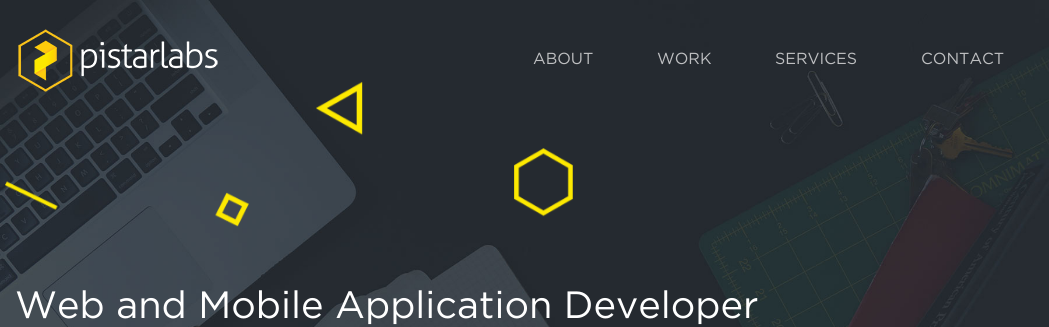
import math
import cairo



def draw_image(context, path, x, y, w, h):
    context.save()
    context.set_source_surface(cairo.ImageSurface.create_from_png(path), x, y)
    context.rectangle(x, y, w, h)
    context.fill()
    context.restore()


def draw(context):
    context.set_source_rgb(1, 1, 1)
    context.paint()
    draw_image(context, "images/1.png", 0, 0, 1049, 327)
    draw_image(context, "images/2.png", 18, 29, 200, 63)
    draw_image(context, "images/3.png", 5, 81, 568, 146)
    context.select_font_face("Gotham")
    context.set_font_size(16)
    context.set_source_rgb(190 / 255, 191 / 255, 193 / 255)
    context.move_to(533, 64)
    context.show_text("ABOUT")
    context.move_to(657, 64)
    context.show_text("WORK")
    context.move_to(775, 64)
    context.show_text("SERVICES")
    context.move_to(921, 64)
    context.show_text("CONTACT")
    context.set_font_size(38)
    context.set_source_rgb(1, 1, 1)
    context.move_to(15, 318)
    context.show_text("Web and Mobile Application Developer")


surface = cairo.ImageSurface(cairo.Format.RGB24, 1049, 327)
context = cairo.Context(surface)
options = cairo.FontOptions()
options.set_hint_metrics(cairo.HintMetrics.OFF)
options.set_hint_style(cairo.HintStyle.NONE)
context.set_font_options(options)
context.set_miter_limit(4)
draw(context)
surface.write_to_png("out.png")
